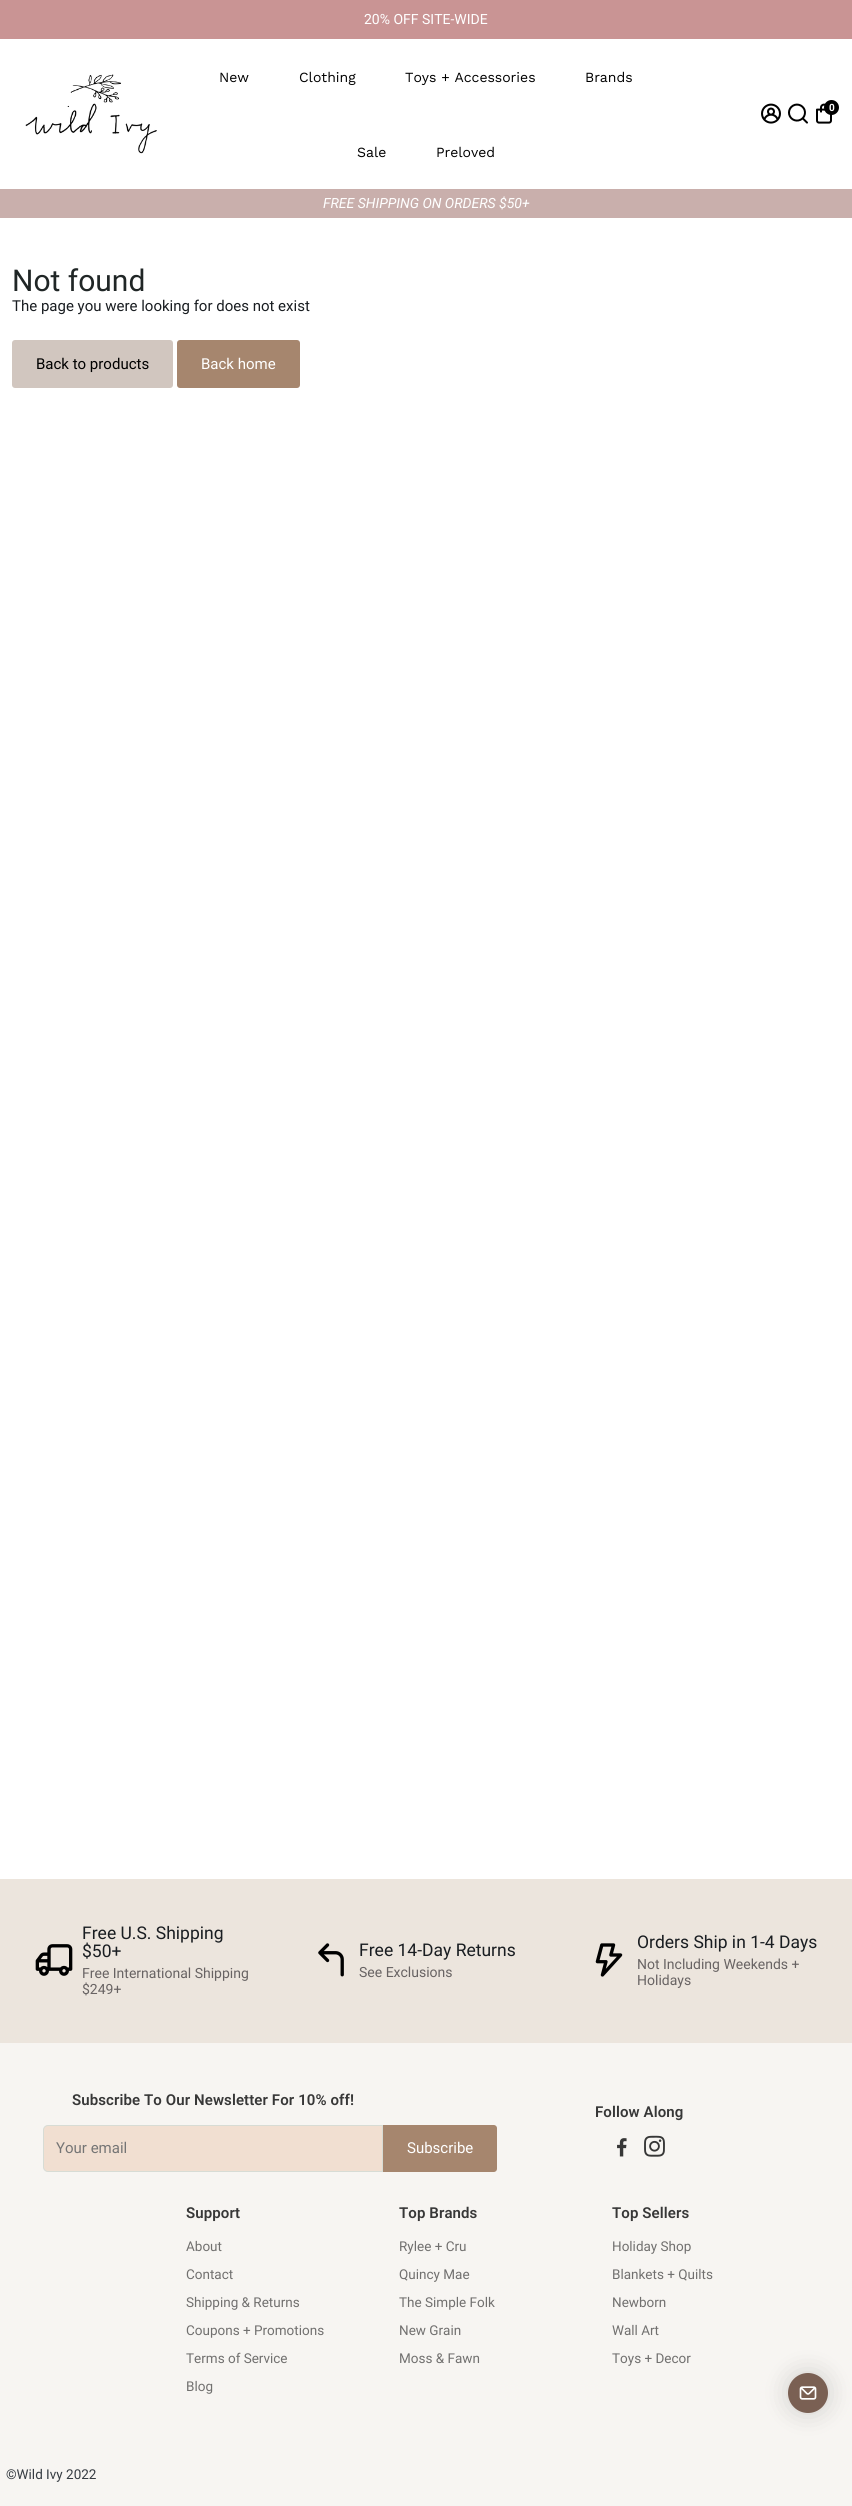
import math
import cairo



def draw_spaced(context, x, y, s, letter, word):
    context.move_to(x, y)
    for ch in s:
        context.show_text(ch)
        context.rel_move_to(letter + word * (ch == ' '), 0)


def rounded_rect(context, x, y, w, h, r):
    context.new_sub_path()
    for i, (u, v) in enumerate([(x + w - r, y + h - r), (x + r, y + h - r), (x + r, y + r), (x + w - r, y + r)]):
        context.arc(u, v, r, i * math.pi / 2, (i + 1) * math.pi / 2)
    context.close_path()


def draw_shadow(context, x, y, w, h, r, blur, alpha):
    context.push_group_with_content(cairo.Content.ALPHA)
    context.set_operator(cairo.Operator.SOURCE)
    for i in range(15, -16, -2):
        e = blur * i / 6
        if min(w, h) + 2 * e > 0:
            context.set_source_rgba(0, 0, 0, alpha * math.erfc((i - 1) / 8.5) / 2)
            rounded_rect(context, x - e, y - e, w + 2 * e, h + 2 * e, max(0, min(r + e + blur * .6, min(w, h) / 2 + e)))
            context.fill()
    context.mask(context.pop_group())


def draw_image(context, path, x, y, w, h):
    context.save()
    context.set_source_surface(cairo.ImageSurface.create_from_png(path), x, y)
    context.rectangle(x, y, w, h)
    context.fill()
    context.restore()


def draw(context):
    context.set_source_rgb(1, 1, 1)
    context.paint()
    context.set_source_rgb(201 / 255, 148 / 255, 148 / 255)
    context.rectangle(0, 0, 852, 39)
    context.fill()
    draw_image(context, "images/1.png", 25, 74, 132, 80)
    draw_image(context, "images/2.png", 761, 103, 20, 21)
    draw_image(context, "images/3.png", 788, 103, 20, 21)
    draw_image(context, "images/4.png", 816, 103, 16, 21)
    context.set_source_rgb(0, 0, 0)
    context.arc(831.5, 107.5, 7.5, 0, 2 * math.pi)
    context.fill()
    context.set_source_rgb(201 / 255, 175 / 255, 172 / 255)
    context.rectangle(0, 189, 852, 29)
    context.fill()
    context.set_source_rgb(209 / 255, 198 / 255, 191 / 255)
    rounded_rect(context, 12, 340, 161, 48, 3)
    context.fill()
    context.set_source_rgb(166 / 255, 134 / 255, 110 / 255)
    rounded_rect(context, 177, 340, 123, 48, 3)
    context.fill()
    context.set_source_rgb(236 / 255, 229 / 255, 221 / 255)
    context.rectangle(0, 1879, 852, 164)
    context.fill()
    draw_image(context, "images/5.png", 35, 1944, 38, 32)
    draw_image(context, "images/6.png", 318, 1943, 26, 34)
    draw_image(context, "images/7.png", 595, 1943, 28, 34)
    context.set_source_rgb(247 / 255, 245 / 255, 242 / 255)
    context.rectangle(0, 2043, 852, 463)
    context.fill()
    context.set_source_rgb(241 / 255, 223 / 255, 209 / 255)
    context.new_path()
    context.move_to(48, 2125.5)
    context.line_to(382.5, 2125.5)
    context.line_to(382.5, 2171.5)
    context.line_to(48, 2171.5)
    context.curve_to(45.5, 2171.5, 43.5, 2169.5, 43.5, 2167)
    context.line_to(43.5, 2130)
    context.curve_to(43.5, 2127.5, 45.5, 2125.5, 48, 2125.5)
    context.close_path()
    context.fill_preserve()
    context.set_source_rgb(215 / 255, 220 / 255, 213 / 255)
    context.set_line_width(1)
    context.stroke()
    context.set_source_rgb(166 / 255, 134 / 255, 110 / 255)
    context.new_path()
    context.move_to(383, 2125)
    context.line_to(494, 2125)
    context.curve_to(495.5, 2125, 497, 2126.5, 497, 2128)
    context.line_to(497, 2169)
    context.curve_to(497, 2170.5, 495.5, 2172, 494, 2172)
    context.line_to(383, 2172)
    context.close_path()
    context.fill()
    draw_image(context, "images/8.png", 617, 2138, 10, 19)
    draw_image(context, "images/9.png", 644, 2135, 21, 22)
    context.set_source_rgb(0, 0, 0)
    draw_shadow(context, 788, 2373, 40, 40, 20, 12.5, 0.15)
    context.set_source_rgb(122 / 255, 96 / 255, 83 / 255)
    context.arc(808, 2393, 20, 0, 2 * math.pi)
    context.fill()
    draw_image(context, "images/10.png", 799, 2386, 18, 14)
    context.select_font_face("Roboto")
    context.set_font_size(14)
    context.set_source_rgb(1, 1, 1)
    context.move_to(364, 24)
    context.show_text("20% OFF SITE-WIDE")
    context.select_font_face("Work Sans")
    context.set_source_rgb(0, 0, 0)
    context.move_to(219, 82)
    context.show_text("New")
    context.move_to(299, 82)
    context.show_text("Clothing")
    context.move_to(405, 82)
    context.show_text("Toys + Accessories")
    context.move_to(585, 82)
    context.show_text("Brands")
    context.move_to(357, 157)
    context.show_text("Sale")
    context.move_to(436, 157)
    context.show_text("Preloved")
    context.select_font_face("Roboto", cairo.FontSlant.NORMAL, cairo.FontWeight.BOLD)
    context.set_font_size(10)
    context.set_source_rgb(1, 1, 1)
    context.move_to(829, 111)
    context.show_text("0")
    context.select_font_face("Roboto", cairo.FontSlant.ITALIC)
    context.set_font_size(14)
    context.move_to(323, 208)
    context.show_text("FREE SHIPPING ON ORDERS $50+")
    context.select_font_face("Roboto")
    context.set_font_size(30)
    context.set_source_rgb(32 / 255, 38 / 255, 38 / 255)
    context.move_to(12, 291)
    context.show_text("Not found")
    context.set_font_size(15)
    context.set_source_rgb(25 / 255, 29 / 255, 33 / 255)
    context.move_to(12, 311)
    context.show_text("The page you were looking for does not exist")
    context.set_source_rgb(0, 0, 0)
    context.move_to(36, 369)
    context.show_text("Back to products")
    context.set_source_rgb(1, 1, 1)
    context.move_to(201, 369)
    context.show_text("Back home")
    context.set_font_size(17.5)
    context.set_source_rgb(25 / 255, 29 / 255, 33 / 255)
    context.move_to(82, 1939)
    context.show_text("Free U.S. Shipping")
    context.move_to(82, 1957)
    context.show_text("$50+")
    context.set_font_size(14)
    context.set_source_rgb(104 / 255, 99 / 255, 99 / 255)
    context.move_to(82, 1978)
    context.show_text("Free International Shipping")
    context.move_to(82, 1994)
    context.show_text("$249+")
    context.set_font_size(17.5)
    context.set_source_rgb(25 / 255, 29 / 255, 33 / 255)
    context.move_to(359, 1956)
    context.show_text("Free 14-Day Returns")
    context.set_font_size(14)
    context.set_source_rgb(104 / 255, 99 / 255, 99 / 255)
    context.move_to(359, 1977)
    context.show_text("See Exclusions")
    context.set_font_size(17.5)
    context.set_source_rgb(25 / 255, 29 / 255, 33 / 255)
    context.move_to(637, 1948)
    context.show_text("Orders Ship in 1-4 Days")
    context.set_font_size(14)
    context.set_source_rgb(104 / 255, 99 / 255, 99 / 255)
    context.move_to(637, 1969)
    context.show_text("Not Including Weekends +")
    context.move_to(637, 1985)
    context.show_text("Holidays")
    context.select_font_face("Roboto SemiBold")
    context.set_font_size(15)
    context.set_source_rgb(55 / 255, 55 / 255, 55 / 255)
    draw_spaced(context, 72, 2105, "Subscribe To Our Newsletter For 10% off!", 0.1, 0)
    context.select_font_face("Roboto")
    context.set_source_rgb(117 / 255, 117 / 255, 117 / 255)
    context.move_to(56, 2153)
    context.show_text("Your email")
    context.set_source_rgb(1, 1, 1)
    context.move_to(407, 2153)
    context.show_text("Subscribe")
    context.select_font_face("Roboto SemiBold")
    context.set_source_rgb(55 / 255, 55 / 255, 55 / 255)
    draw_spaced(context, 595, 2117, "Follow Along", 0.1, 0)
    draw_spaced(context, 186, 2218, "Support", 0.1, 0)
    context.select_font_face("Roboto")
    context.set_font_size(13.5)
    context.set_source_rgb(113 / 255, 112 / 255, 111 / 255)
    context.move_to(186, 2251)
    context.show_text("About")
    context.move_to(186, 2279)
    context.show_text("Contact")
    context.move_to(186, 2307)
    context.show_text("Shipping & Returns")
    context.move_to(186, 2335)
    context.show_text("Coupons + Promotions")
    context.move_to(186, 2363)
    context.show_text("Terms of Service")
    context.move_to(186, 2391)
    context.show_text("Blog")
    context.select_font_face("Roboto SemiBold")
    context.set_font_size(15)
    context.set_source_rgb(55 / 255, 55 / 255, 55 / 255)
    draw_spaced(context, 399, 2218, "Top Brands", 0.1, 0)
    context.select_font_face("Roboto")
    context.set_font_size(13.5)
    context.set_source_rgb(113 / 255, 112 / 255, 111 / 255)
    context.move_to(399, 2251)
    context.show_text("Rylee + Cru")
    context.move_to(399, 2279)
    context.show_text("Quincy Mae")
    context.move_to(399, 2307)
    context.show_text("The Simple Folk")
    context.move_to(399, 2335)
    context.show_text("New Grain")
    context.move_to(399, 2363)
    context.show_text("Moss & Fawn")
    context.select_font_face("Roboto SemiBold")
    context.set_font_size(15)
    context.set_source_rgb(55 / 255, 55 / 255, 55 / 255)
    draw_spaced(context, 612, 2218, "Top Sellers", 0.1, 0)
    context.select_font_face("Roboto")
    context.set_font_size(13.5)
    context.set_source_rgb(113 / 255, 112 / 255, 111 / 255)
    context.move_to(612, 2251)
    context.show_text("Holiday Shop")
    context.move_to(612, 2279)
    context.show_text("Blankets + Quilts")
    context.move_to(612, 2307)
    context.show_text("Newborn")
    context.move_to(612, 2335)
    context.show_text("Wall Art")
    context.move_to(612, 2363)
    context.show_text("Toys + Decor")
    context.set_source_rgb(54 / 255, 60 / 255, 66 / 255)
    context.move_to(6, 2479)
    context.show_text("©Wild Ivy 2022")


surface = cairo.ImageSurface(cairo.Format.RGB24, 852, 2506)
context = cairo.Context(surface)
options = cairo.FontOptions()
options.set_hint_metrics(cairo.HintMetrics.OFF)
options.set_hint_style(cairo.HintStyle.NONE)
context.set_font_options(options)
context.set_miter_limit(4)
draw(context)
surface.write_to_png("out.png")
